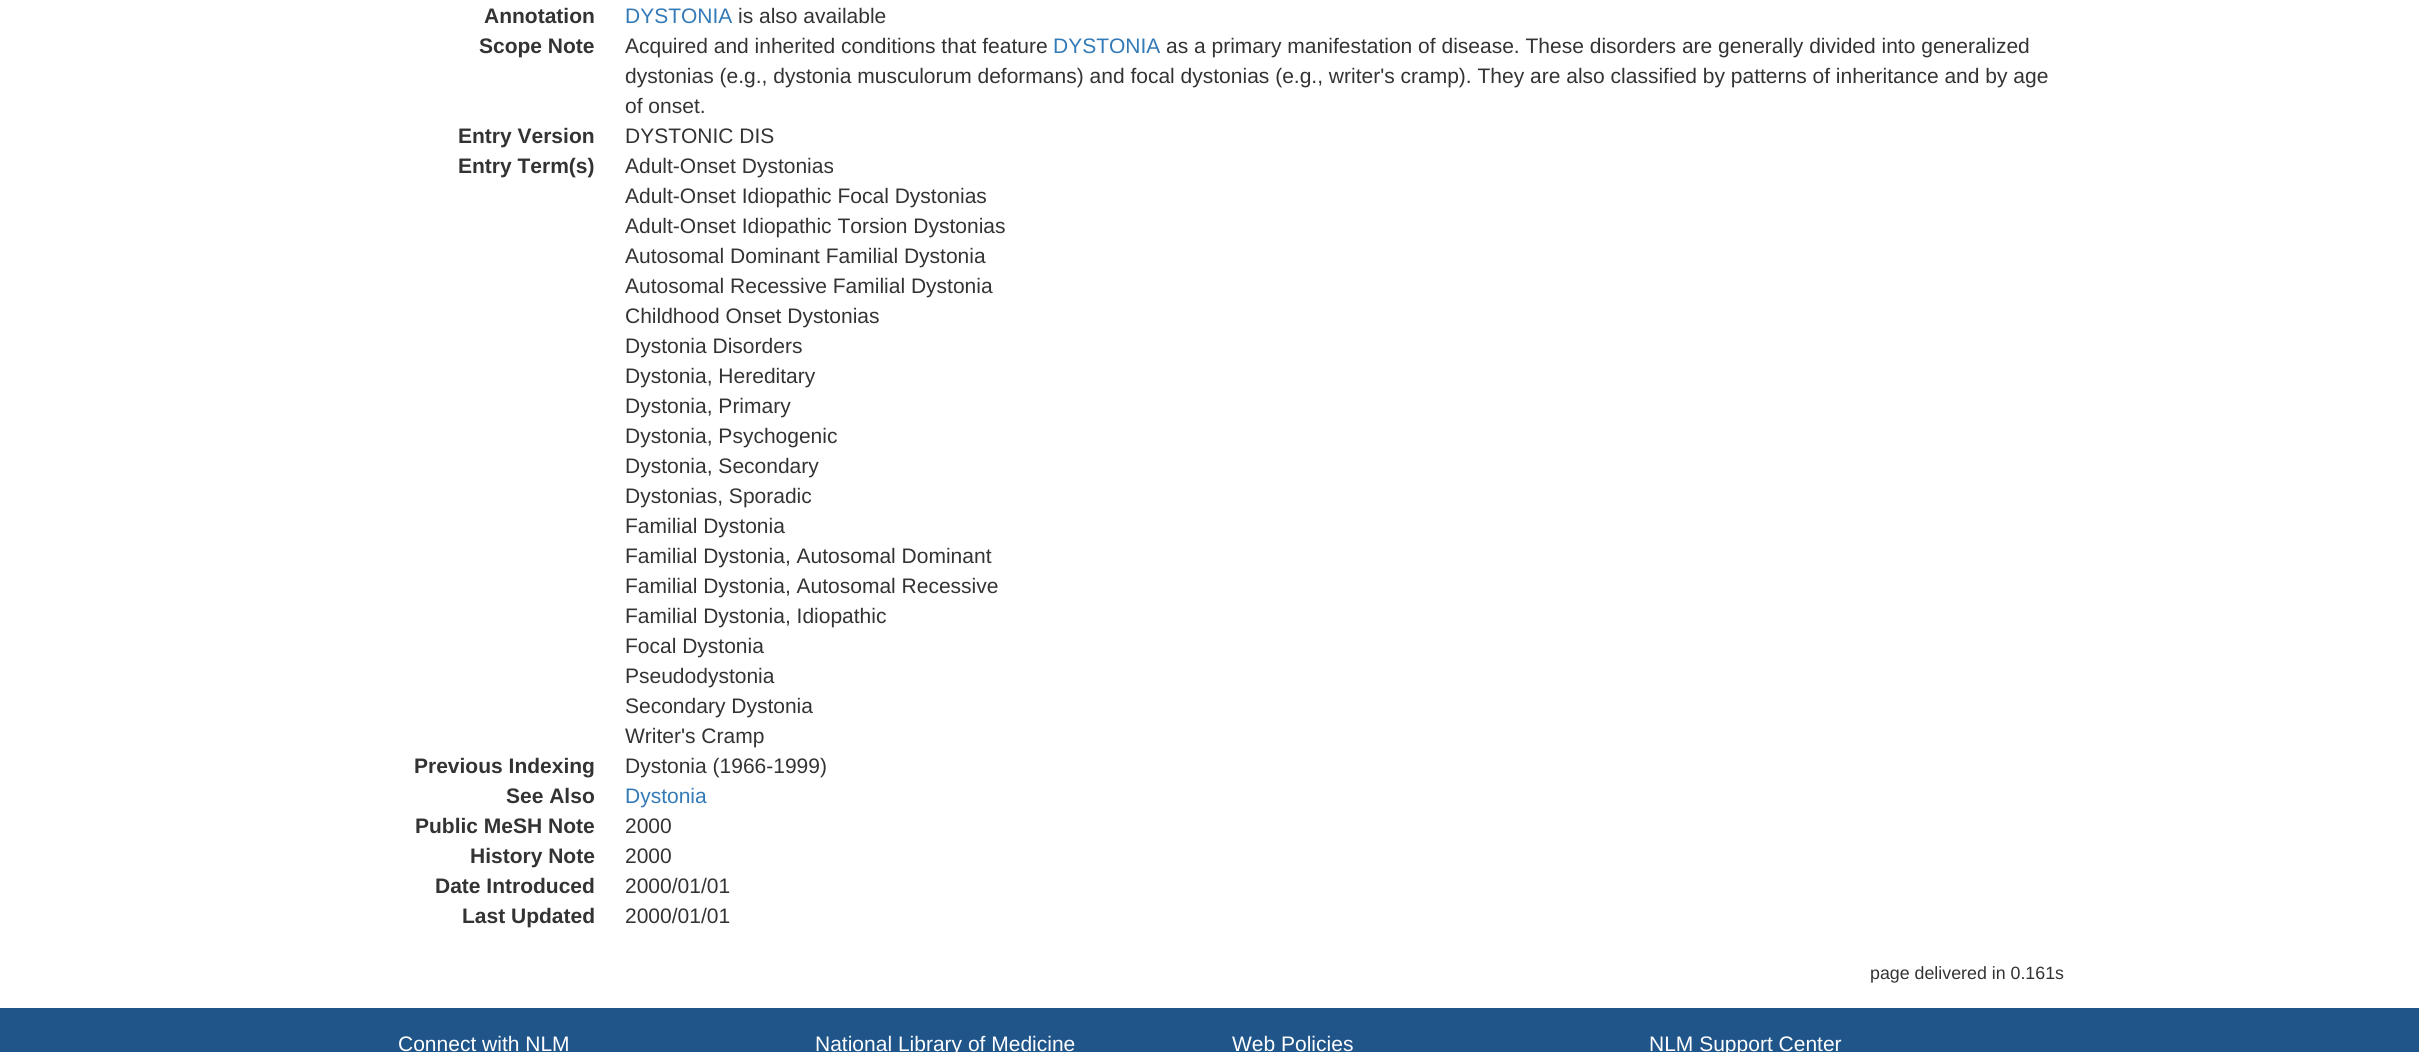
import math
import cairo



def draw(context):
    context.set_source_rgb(1, 1, 1)
    context.paint()
    context.set_source_rgb(32 / 255, 85 / 255, 138 / 255)
    context.rectangle(0, 1008, 2419, 44)
    context.fill()
    context.select_font_face("Liberation Sans", cairo.FontSlant.NORMAL, cairo.FontWeight.BOLD)
    context.set_font_size(21)
    context.set_source_rgb(51 / 255, 51 / 255, 51 / 255)
    context.move_to(484, 23)
    context.show_text("Annotation")
    context.select_font_face("Liberation Sans")
    context.set_source_rgb(51 / 255, 122 / 255, 183 / 255)
    context.move_to(625, 23)
    context.show_text("DYSTONIA")
    context.set_source_rgb(51 / 255, 51 / 255, 51 / 255)
    context.move_to(738, 23)
    context.show_text("is also available")
    context.select_font_face("Liberation Sans", cairo.FontSlant.NORMAL, cairo.FontWeight.BOLD)
    context.move_to(479, 53)
    context.show_text("Scope Note")
    context.select_font_face("Liberation Sans")
    context.move_to(625, 53)
    context.show_text("Acquired and inherited conditions that feature")
    context.set_source_rgb(51 / 255, 122 / 255, 183 / 255)
    context.move_to(1053, 53)
    context.show_text("DYSTONIA")
    context.set_source_rgb(51 / 255, 51 / 255, 51 / 255)
    context.move_to(1166, 53)
    context.show_text("as a primary manifestation of disease. These disorders are generally divided into generalized")
    context.move_to(625, 83)
    context.show_text("dystonias (e.g., dystonia musculorum deformans) and focal dystonias (e.g., writer's cramp). They are also classified by patterns of inheritance and by age")
    context.move_to(625, 113)
    context.show_text("of onset.")
    context.select_font_face("Liberation Sans", cairo.FontSlant.NORMAL, cairo.FontWeight.BOLD)
    context.move_to(458, 143)
    context.show_text("Entry Version")
    context.select_font_face("Liberation Sans")
    context.move_to(625, 143)
    context.show_text("DYSTONIC DIS")
    context.select_font_face("Liberation Sans", cairo.FontSlant.NORMAL, cairo.FontWeight.BOLD)
    context.move_to(458, 173)
    context.show_text("Entry Term(s)")
    context.select_font_face("Liberation Sans")
    context.move_to(625, 173)
    context.show_text("Adult-Onset Dystonias")
    context.move_to(625, 203)
    context.show_text("Adult-Onset Idiopathic Focal Dystonias")
    context.move_to(625, 233)
    context.show_text("Adult-Onset Idiopathic Torsion Dystonias")
    context.move_to(625, 263)
    context.show_text("Autosomal Dominant Familial Dystonia")
    context.move_to(625, 293)
    context.show_text("Autosomal Recessive Familial Dystonia")
    context.move_to(625, 323)
    context.show_text("Childhood Onset Dystonias")
    context.move_to(625, 353)
    context.show_text("Dystonia Disorders")
    context.move_to(625, 383)
    context.show_text("Dystonia, Hereditary")
    context.move_to(625, 413)
    context.show_text("Dystonia, Primary")
    context.move_to(625, 443)
    context.show_text("Dystonia, Psychogenic")
    context.move_to(625, 473)
    context.show_text("Dystonia, Secondary")
    context.move_to(625, 503)
    context.show_text("Dystonias, Sporadic")
    context.move_to(625, 533)
    context.show_text("Familial Dystonia")
    context.move_to(625, 563)
    context.show_text("Familial Dystonia, Autosomal Dominant")
    context.move_to(625, 593)
    context.show_text("Familial Dystonia, Autosomal Recessive")
    context.move_to(625, 623)
    context.show_text("Familial Dystonia, Idiopathic")
    context.move_to(625, 653)
    context.show_text("Focal Dystonia")
    context.move_to(625, 683)
    context.show_text("Pseudodystonia")
    context.move_to(625, 713)
    context.show_text("Secondary Dystonia")
    context.move_to(625, 743)
    context.show_text("Writer's Cramp")
    context.select_font_face("Liberation Sans", cairo.FontSlant.NORMAL, cairo.FontWeight.BOLD)
    context.move_to(414, 773)
    context.show_text("Previous Indexing")
    context.select_font_face("Liberation Sans")
    context.move_to(625, 773)
    context.show_text("Dystonia (1966-1999)")
    context.select_font_face("Liberation Sans", cairo.FontSlant.NORMAL, cairo.FontWeight.BOLD)
    context.move_to(506, 803)
    context.show_text("See Also")
    context.select_font_face("Liberation Sans")
    context.set_source_rgb(51 / 255, 122 / 255, 183 / 255)
    context.move_to(625, 803)
    context.show_text("Dystonia")
    context.select_font_face("Liberation Sans", cairo.FontSlant.NORMAL, cairo.FontWeight.BOLD)
    context.set_source_rgb(51 / 255, 51 / 255, 51 / 255)
    context.move_to(415, 833)
    context.show_text("Public MeSH Note")
    context.select_font_face("Liberation Sans")
    context.move_to(625, 833)
    context.show_text("2000")
    context.select_font_face("Liberation Sans", cairo.FontSlant.NORMAL, cairo.FontWeight.BOLD)
    context.move_to(470, 863)
    context.show_text("History Note")
    context.select_font_face("Liberation Sans")
    context.move_to(625, 863)
    context.show_text("2000")
    context.select_font_face("Liberation Sans", cairo.FontSlant.NORMAL, cairo.FontWeight.BOLD)
    context.move_to(435, 893)
    context.show_text("Date Introduced")
    context.select_font_face("Liberation Sans")
    context.move_to(625, 893)
    context.show_text("2000/01/01")
    context.select_font_face("Liberation Sans", cairo.FontSlant.NORMAL, cairo.FontWeight.BOLD)
    context.move_to(462, 923)
    context.show_text("Last Updated")
    context.select_font_face("Liberation Sans")
    context.move_to(625, 923)
    context.show_text("2000/01/01")
    context.set_font_size(17.8)
    context.move_to(1870, 979)
    context.show_text("page delivered in 0.161s")
    context.set_font_size(21)
    context.set_source_rgb(1, 1, 1)
    context.move_to(398, 1051)
    context.show_text("Connect with NLM")
    context.move_to(815, 1051)
    context.show_text("National Library of Medicine")
    context.move_to(1232, 1051)
    context.show_text("Web Policies")
    context.move_to(1649, 1051)
    context.show_text("NLM Support Center")


surface = cairo.ImageSurface(cairo.Format.RGB24, 2419, 1052)
context = cairo.Context(surface)
options = cairo.FontOptions()
options.set_hint_metrics(cairo.HintMetrics.OFF)
options.set_hint_style(cairo.HintStyle.NONE)
context.set_font_options(options)
context.set_miter_limit(4)
draw(context)
surface.write_to_png("out.png")
